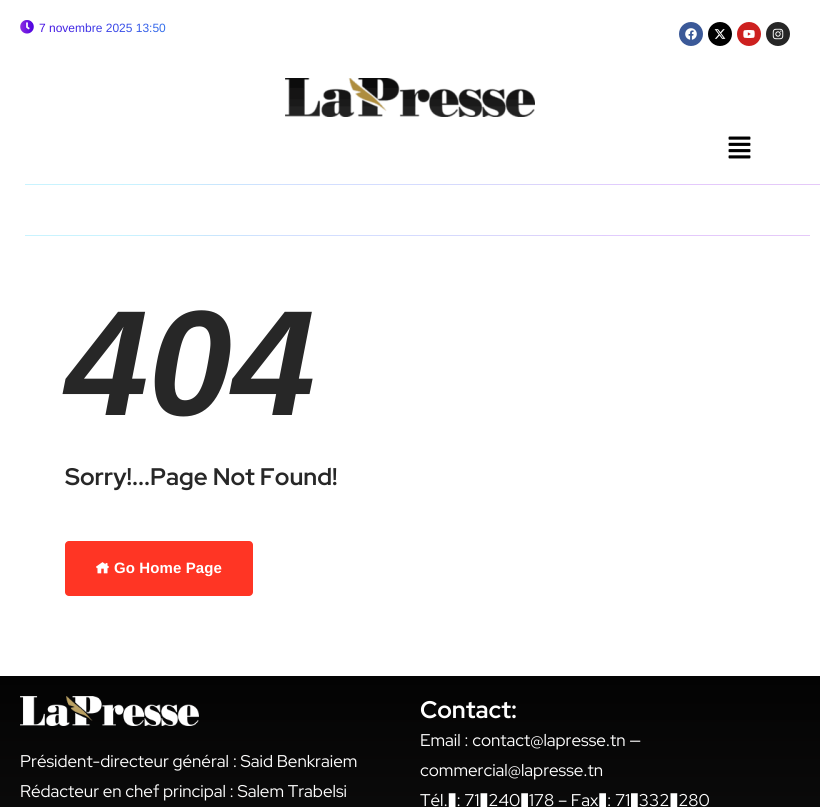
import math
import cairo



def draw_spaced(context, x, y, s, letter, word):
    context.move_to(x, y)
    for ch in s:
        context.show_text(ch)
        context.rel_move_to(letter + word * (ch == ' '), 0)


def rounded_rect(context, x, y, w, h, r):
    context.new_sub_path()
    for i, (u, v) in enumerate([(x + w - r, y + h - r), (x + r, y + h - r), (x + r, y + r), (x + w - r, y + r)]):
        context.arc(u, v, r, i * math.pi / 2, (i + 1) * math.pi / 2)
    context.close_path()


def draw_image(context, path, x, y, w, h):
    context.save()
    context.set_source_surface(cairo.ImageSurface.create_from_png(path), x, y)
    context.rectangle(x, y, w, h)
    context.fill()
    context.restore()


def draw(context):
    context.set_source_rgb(1, 1, 1)
    context.paint()
    draw_image(context, "images/1.png", 20, 20, 14, 14)
    context.set_source_rgb(59 / 255, 89 / 255, 152 / 255)
    context.arc(691, 34, 12, 0, 2 * math.pi)
    context.fill()
    draw_image(context, "images/2.png", 685, 28, 12, 12)
    context.set_source_rgb(0, 0, 0)
    context.arc(720, 34, 12, 0, 2 * math.pi)
    context.fill()
    draw_image(context, "images/3.png", 714, 29, 12, 10)
    context.set_source_rgb(205 / 255, 32 / 255, 31 / 255)
    context.arc(749, 34, 12, 0, 2 * math.pi)
    context.fill()
    draw_image(context, "images/4.png", 743, 30, 12, 8)
    context.set_source_rgb(38 / 255, 38 / 255, 38 / 255)
    context.arc(778, 34, 12, 0, 2 * math.pi)
    context.fill()
    draw_image(context, "images/5.png", 772, 28, 12, 12)
    draw_image(context, "images/6.png", 285, 78, 250, 39)
    draw_image(context, "images/7.png", 728, 136, 23, 23)
    draw_image(context, "images/8.png", 25, 184, 795, 1)
    draw_image(context, "images/9.png", 25, 235, 785, 1)
    context.set_source_rgb(1, 53 / 255, 36 / 255)
    rounded_rect(context, 65, 541, 188, 55, 4)
    context.fill()
    draw_image(context, "images/10.png", 96, 562, 13, 12)
    gradient = cairo.LinearGradient(410, 676, 410, 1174)
    gradient.add_color_stop_rgba(0, 3 / 255, 3 / 255, 3 / 255, 1)
    gradient.add_color_stop_rgba(1, 31 / 255, 30 / 255, 30 / 255, 1)
    context.set_source(gradient)
    context.rectangle(0, 676, 820, 131)
    context.fill()
    draw_image(context, "images/11.png", 20, 696, 179, 30)
    context.select_font_face("Liberation Sans")
    context.set_font_size(12)
    gradient = cairo.LinearGradient(20, 27, 166, 27)
    gradient.add_color_stop_rgba(0, 74 / 255, 0, 224 / 255, 1)
    gradient.add_color_stop_rgba(1, 52 / 255, 113 / 255, 235 / 255, 1)
    context.set_source(gradient)
    context.move_to(39, 32)
    context.show_text("7 novembre 2025 13:50")
    context.select_font_face("Liberation Sans", cairo.FontSlant.ITALIC, cairo.FontWeight.BOLD)
    context.set_font_size(150)
    context.set_source_rgb(39 / 255, 39 / 255, 39 / 255)
    context.move_to(65, 415)
    context.show_text("404")
    context.select_font_face("Red Hat Display", cairo.FontSlant.NORMAL, cairo.FontWeight.BOLD)
    context.set_font_size(24)
    context.move_to(65, 485)
    context.show_text("Sorry!...Page Not Found!")
    context.select_font_face("Liberation Sans", cairo.FontSlant.NORMAL, cairo.FontWeight.BOLD)
    context.set_font_size(15)
    context.set_source_rgb(1, 1, 1)
    draw_spaced(context, 114, 573, "Go Home Page", 0.1, 0)
    context.select_font_face("Red Hat Display")
    context.set_font_size(17)
    context.move_to(20, 767)
    context.show_text("Président-directeur général : Said Benkraiem")
    context.move_to(20, 797)
    context.show_text("Rédacteur en chef principal : Salem Trabelsi")
    context.select_font_face("Red Hat Display", cairo.FontSlant.NORMAL, cairo.FontWeight.BOLD)
    context.set_font_size(24)
    context.move_to(420, 718)
    context.show_text("Contact:")
    context.select_font_face("Red Hat Display")
    context.set_font_size(17)
    context.move_to(420, 746)
    context.show_text("Email : contact@lapresse.tn —")
    context.move_to(420, 776)
    context.show_text("commercial@lapresse.tn")
    context.move_to(420, 806)
    context.show_text("Tél. : 71 240 178 – Fax : 71 332 280")


surface = cairo.ImageSurface(cairo.Format.RGB24, 820, 807)
context = cairo.Context(surface)
options = cairo.FontOptions()
options.set_hint_metrics(cairo.HintMetrics.OFF)
options.set_hint_style(cairo.HintStyle.NONE)
context.set_font_options(options)
context.set_miter_limit(4)
draw(context)
surface.write_to_png("out.png")
